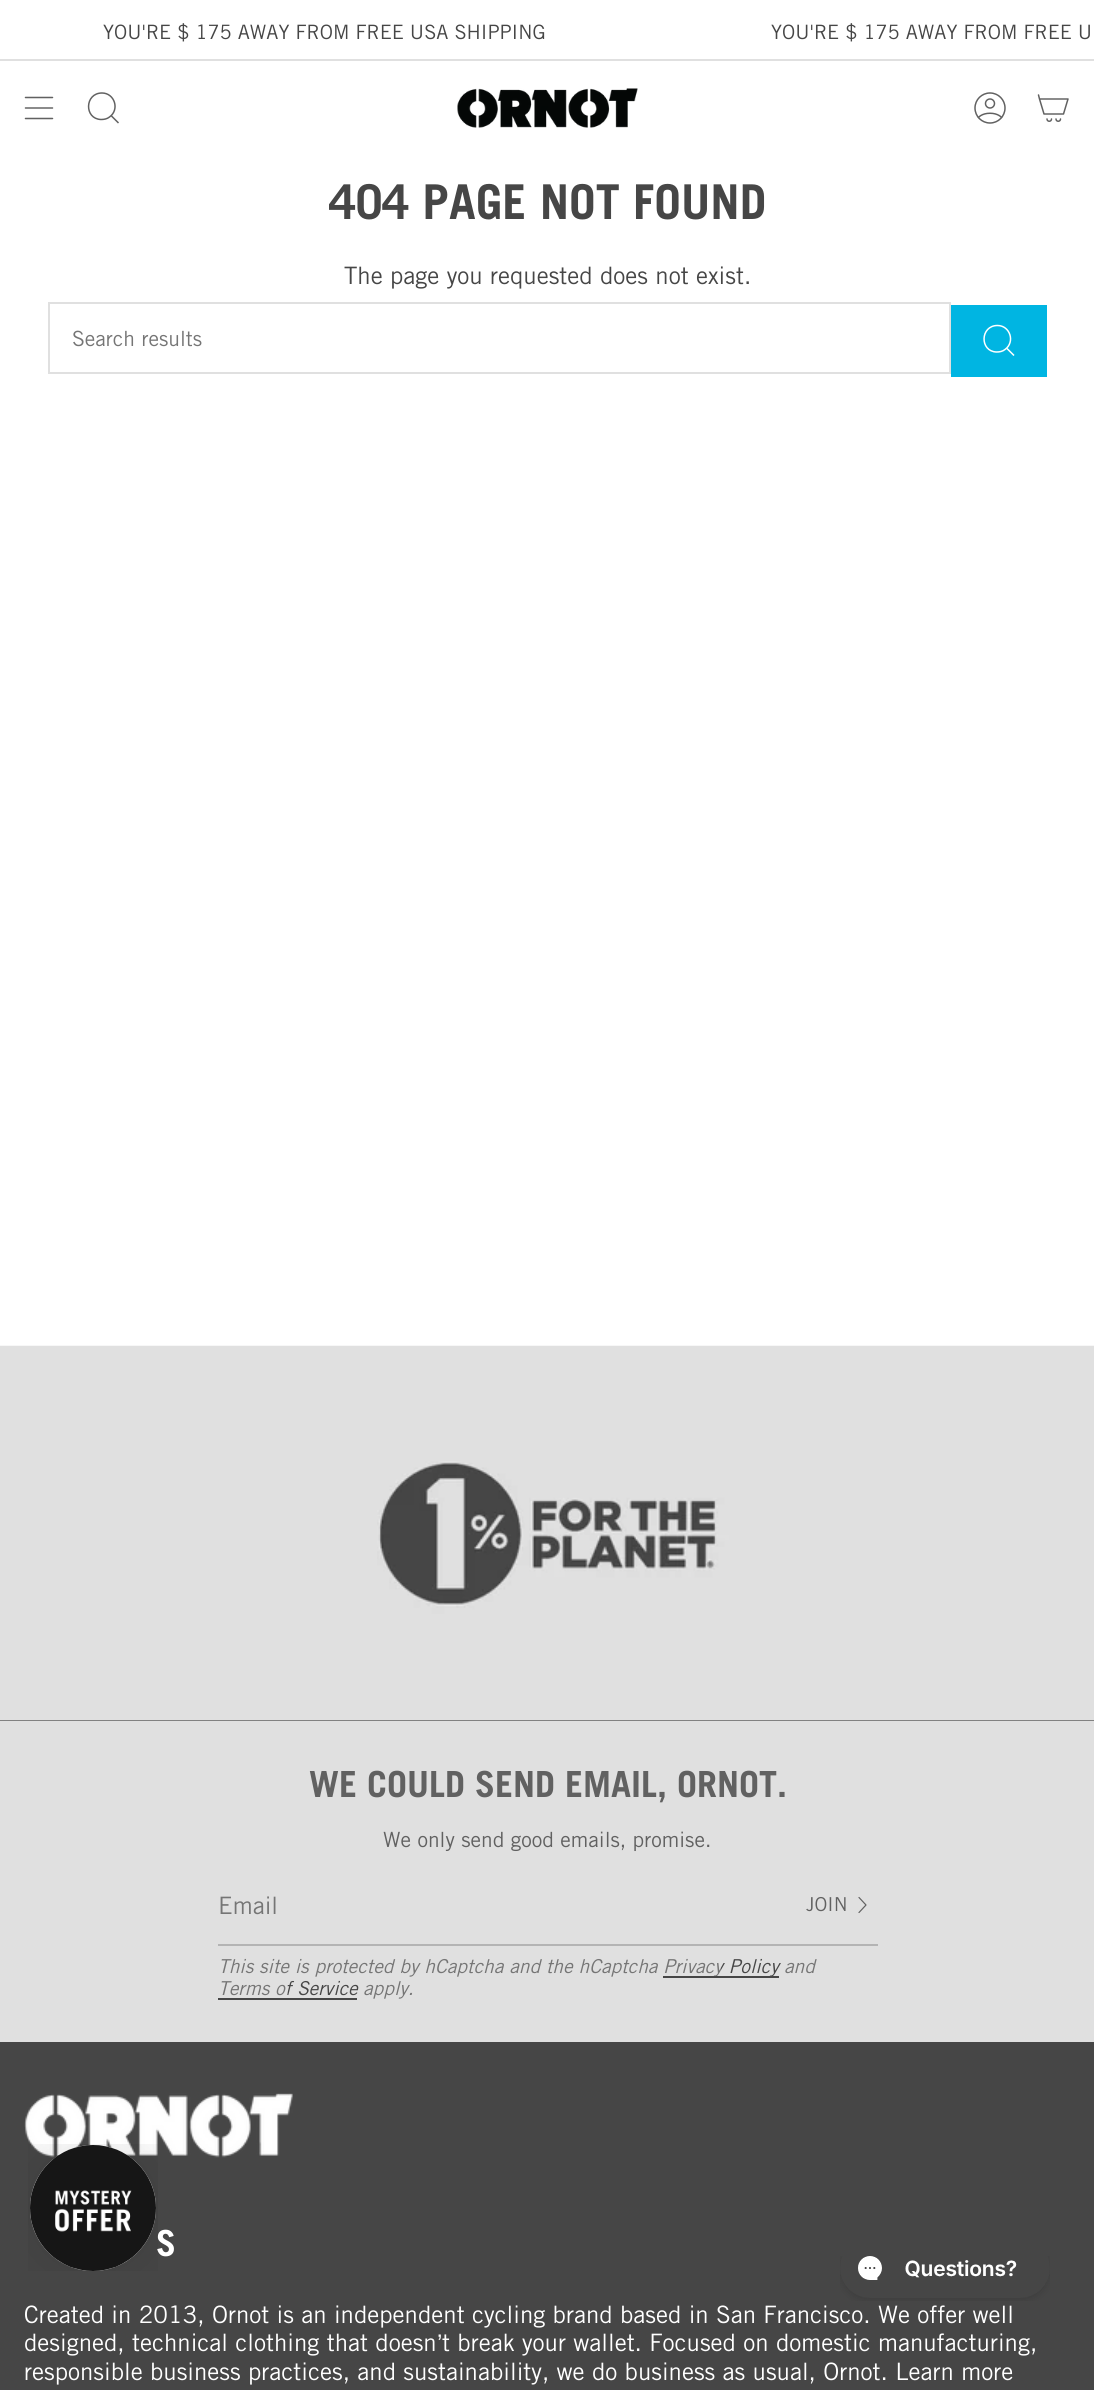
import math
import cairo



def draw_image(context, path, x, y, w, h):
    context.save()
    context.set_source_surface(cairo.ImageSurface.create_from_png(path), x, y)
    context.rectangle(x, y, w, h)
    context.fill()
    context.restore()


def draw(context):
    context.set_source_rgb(1, 1, 1)
    context.paint()
    context.set_source_rgb(224 / 255, 224 / 255, 224 / 255)
    context.rectangle(0, 59, 1094, 2)
    context.fill()
    context.new_path()
    context.move_to(25.5, 97.5)
    context.line_to(52.5, 97.5)
    context.move_to(25.5, 108)
    context.line_to(52.5, 108)
    context.move_to(25.5, 118.5)
    context.line_to(52.5, 118.5)
    context.set_source_rgb(97 / 255, 97 / 255, 97 / 255)
    context.set_line_width(1.5)
    context.set_line_cap(cairo.LineCap.ROUND)
    context.set_line_join(cairo.LineJoin.ROUND)
    context.stroke()
    context.new_path()
    context.move_to(102, 93)
    context.curve_to(114.5, 93, 120, 109.5, 109.5, 117)
    context.curve_to(107, 119, 104, 119.5, 101, 119.5)
    context.curve_to(84, 119, 84.5, 93, 102, 93)
    context.close_path()
    context.move_to(111, 115.5)
    context.line_to(118.5, 123)
    context.set_line_cap(cairo.LineCap.BUTT)
    context.set_line_join(cairo.LineJoin.MITER)
    context.stroke()
    draw_image(context, "images/1.png", 457, 88, 181, 40)
    draw_image(context, "images/2.png", 974, 92, 32, 32)
    context.new_path()
    context.move_to(1039.5, 99)
    context.line_to(1068, 99)
    context.line_to(1063.5, 114)
    context.line_to(1044, 114)
    context.close_path()
    context.move_to(1039.5, 99)
    context.line_to(1038.5, 95)
    context.move_to(1051.5, 119)
    context.curve_to(1051.5, 122, 1047, 122, 1047, 119)
    context.move_to(1060.5, 119)
    context.curve_to(1060.5, 122, 1056, 122, 1056, 119)
    context.set_line_cap(cairo.LineCap.ROUND)
    context.set_line_join(cairo.LineJoin.ROUND)
    context.stroke()
    context.rectangle(49, 303, 901, 70)
    context.set_source_rgb(224 / 255, 224 / 255, 224 / 255)
    context.set_line_width(2)
    context.set_line_cap(cairo.LineCap.BUTT)
    context.set_line_join(cairo.LineJoin.MITER)
    context.stroke()
    context.set_source_rgb(0, 181 / 255, 226 / 255)
    context.rectangle(951, 305, 96, 72)
    context.fill()
    context.new_path()
    context.move_to(997.5, 325.5)
    context.curve_to(1010, 325.5, 1015.5, 342, 1005, 349.5)
    context.curve_to(1002.5, 351.5, 999.5, 352, 996.5, 352)
    context.curve_to(979.5, 351.5, 980, 325.5, 997.5, 325.5)
    context.close_path()
    context.move_to(1006.5, 348)
    context.line_to(1014, 355.5)
    context.set_source_rgb(1, 1, 1)
    context.set_line_width(1.5)
    context.stroke()
    context.set_source_rgb(97 / 255, 97 / 255, 97 / 255)
    context.rectangle(0, 1720, 1094, 1)
    context.fill()
    draw_image(context, "images/3.png", 0, 1345, 1094, 376)
    context.set_source_rgb(224 / 255, 224 / 255, 224 / 255)
    context.rectangle(0, 1721, 1094, 321)
    context.fill()
    context.set_source_rgb(180 / 255, 180 / 255, 180 / 255)
    context.rectangle(218, 1944, 660, 2)
    context.fill()
    context.new_path()
    context.move_to(859, 1897.5)
    context.line_to(866, 1905)
    context.line_to(859, 1912.5)
    context.set_source_rgb(97 / 255, 97 / 255, 97 / 255)
    context.set_line_width(1.2)
    context.set_line_cap(cairo.LineCap.ROUND)
    context.set_line_join(cairo.LineJoin.ROUND)
    context.stroke()
    context.set_source_rgb(70 / 255, 70 / 255, 70 / 255)
    context.rectangle(218, 1998, 139, 2)
    context.fill()
    context.rectangle(0, 2042, 1094, 348)
    context.fill()
    draw_image(context, "images/5.png", 24, 2093, 269, 65)
    context.set_source_rgb(1, 1, 1)
    context.arc(93, 2208, 63, 0, 2 * math.pi)
    context.fill()
    draw_image(context, "images/6.png", 840, 2256, 210, 45)
    context.select_font_face("Trade Gothic")
    context.set_font_size(19.8)
    context.set_source_rgb(70 / 255, 70 / 255, 70 / 255)
    context.move_to(103, 39)
    context.show_text("YOU'RE $ 175 AWAY FROM FREE USA SHIPPING")
    context.move_to(771, 39)
    context.show_text("YOU'RE $ 175 AWAY FROM FREE U")
    context.select_font_face("Trade Gothic", cairo.FontSlant.NORMAL, cairo.FontWeight.BOLD)
    context.set_font_size(48)
    context.move_to(329, 219)
    context.show_text("404 PAGE NOT FOUND")
    context.select_font_face("Trade Gothic")
    context.set_font_size(24)
    context.move_to(344, 284)
    context.show_text("The page you requested does not exist.")
    context.set_font_size(21)
    context.set_source_rgb(117 / 255, 117 / 255, 117 / 255)
    context.move_to(72, 346)
    context.show_text("Search results")
    context.select_font_face("Trade Gothic", cairo.FontSlant.NORMAL, cairo.FontWeight.BOLD)
    context.set_font_size(36)
    context.set_source_rgb(97 / 255, 97 / 255, 97 / 255)
    context.move_to(309, 1797)
    context.show_text("WE COULD SEND EMAIL, ORNOT.")
    context.select_font_face("Trade Gothic")
    context.set_font_size(21)
    context.move_to(383, 1847)
    context.show_text("We only send good emails, promise.")
    context.set_font_size(24)
    context.set_source_rgb(117 / 255, 117 / 255, 117 / 255)
    context.move_to(218, 1914)
    context.show_text("Email")
    context.set_font_size(19.2)
    context.set_source_rgb(97 / 255, 97 / 255, 97 / 255)
    context.move_to(806, 1911)
    context.show_text("JOIN")
    context.select_font_face("Trade Gothic", cairo.FontSlant.ITALIC)
    context.set_source_rgb(117 / 255, 117 / 255, 117 / 255)
    context.move_to(218, 1973)
    context.show_text("This site is protected by hCaptcha and the hCaptcha")
    gradient = cairo.LinearGradient(663, 1966, 778, 1966)
    gradient.add_color_stop_rgba(0, 116 / 255, 116 / 255, 116 / 255, 1)
    gradient.add_color_stop_rgba(0.5, 116 / 255, 116 / 255, 116 / 255, 1)
    gradient.add_color_stop_rgba(0.5, 70 / 255, 70 / 255, 70 / 255, 1)
    gradient.add_color_stop_rgba(1, 70 / 255, 70 / 255, 70 / 255, 1)
    context.set_source(gradient)
    context.move_to(663, 1973)
    context.show_text("Privacy Policy")
    context.set_source_rgb(70 / 255, 70 / 255, 70 / 255)
    context.rectangle(663, 1976, 116, 2)
    context.fill()
    context.set_source_rgb(117 / 255, 117 / 255, 117 / 255)
    context.move_to(784, 1973)
    context.show_text("and")
    gradient = cairo.LinearGradient(218, 1989, 357, 1989)
    gradient.add_color_stop_rgba(0, 116 / 255, 116 / 255, 116 / 255, 1)
    gradient.add_color_stop_rgba(0.5, 116 / 255, 116 / 255, 116 / 255, 1)
    gradient.add_color_stop_rgba(0.5, 70 / 255, 70 / 255, 70 / 255, 1)
    gradient.add_color_stop_rgba(1, 70 / 255, 70 / 255, 70 / 255, 1)
    context.set_source(gradient)
    context.move_to(218, 1995)
    context.show_text("Terms of Service")
    context.set_source_rgb(117 / 255, 117 / 255, 117 / 255)
    context.move_to(363, 1995)
    context.show_text("apply.")
    context.select_font_face("Trade Gothic", cairo.FontSlant.NORMAL, cairo.FontWeight.BOLD)
    context.set_font_size(36)
    context.set_source_rgb(1, 1, 1)
    context.move_to(156, 2256)
    context.show_text("S")
    draw_image(context, "images/4.png", 28, 2144, 130, 127)
    context.select_font_face("Trade Gothic")
    context.set_font_size(24)
    context.move_to(24, 2323)
    context.show_text("Created in 2013, Ornot is an independent cycling brand based in San Francisco. We offer well")
    context.move_to(24, 2351)
    context.show_text("designed, technical clothing that doesn")
    context.select_font_face("Liberation Sans")
    context.move_to(437, 2351)
    context.show_text("’")
    context.select_font_face("Trade Gothic")
    context.move_to(442, 2351)
    context.show_text("t break your wallet. Focused on domestic manufacturing,")
    context.move_to(24, 2380)
    context.show_text("responsible business practices, and sustainability, we do business as usual, Ornot. Learn more")


surface = cairo.ImageSurface(cairo.Format.RGB24, 1094, 2390)
context = cairo.Context(surface)
options = cairo.FontOptions()
options.set_hint_metrics(cairo.HintMetrics.OFF)
options.set_hint_style(cairo.HintStyle.NONE)
context.set_font_options(options)
context.set_miter_limit(4)
draw(context)
surface.write_to_png("out.png")
